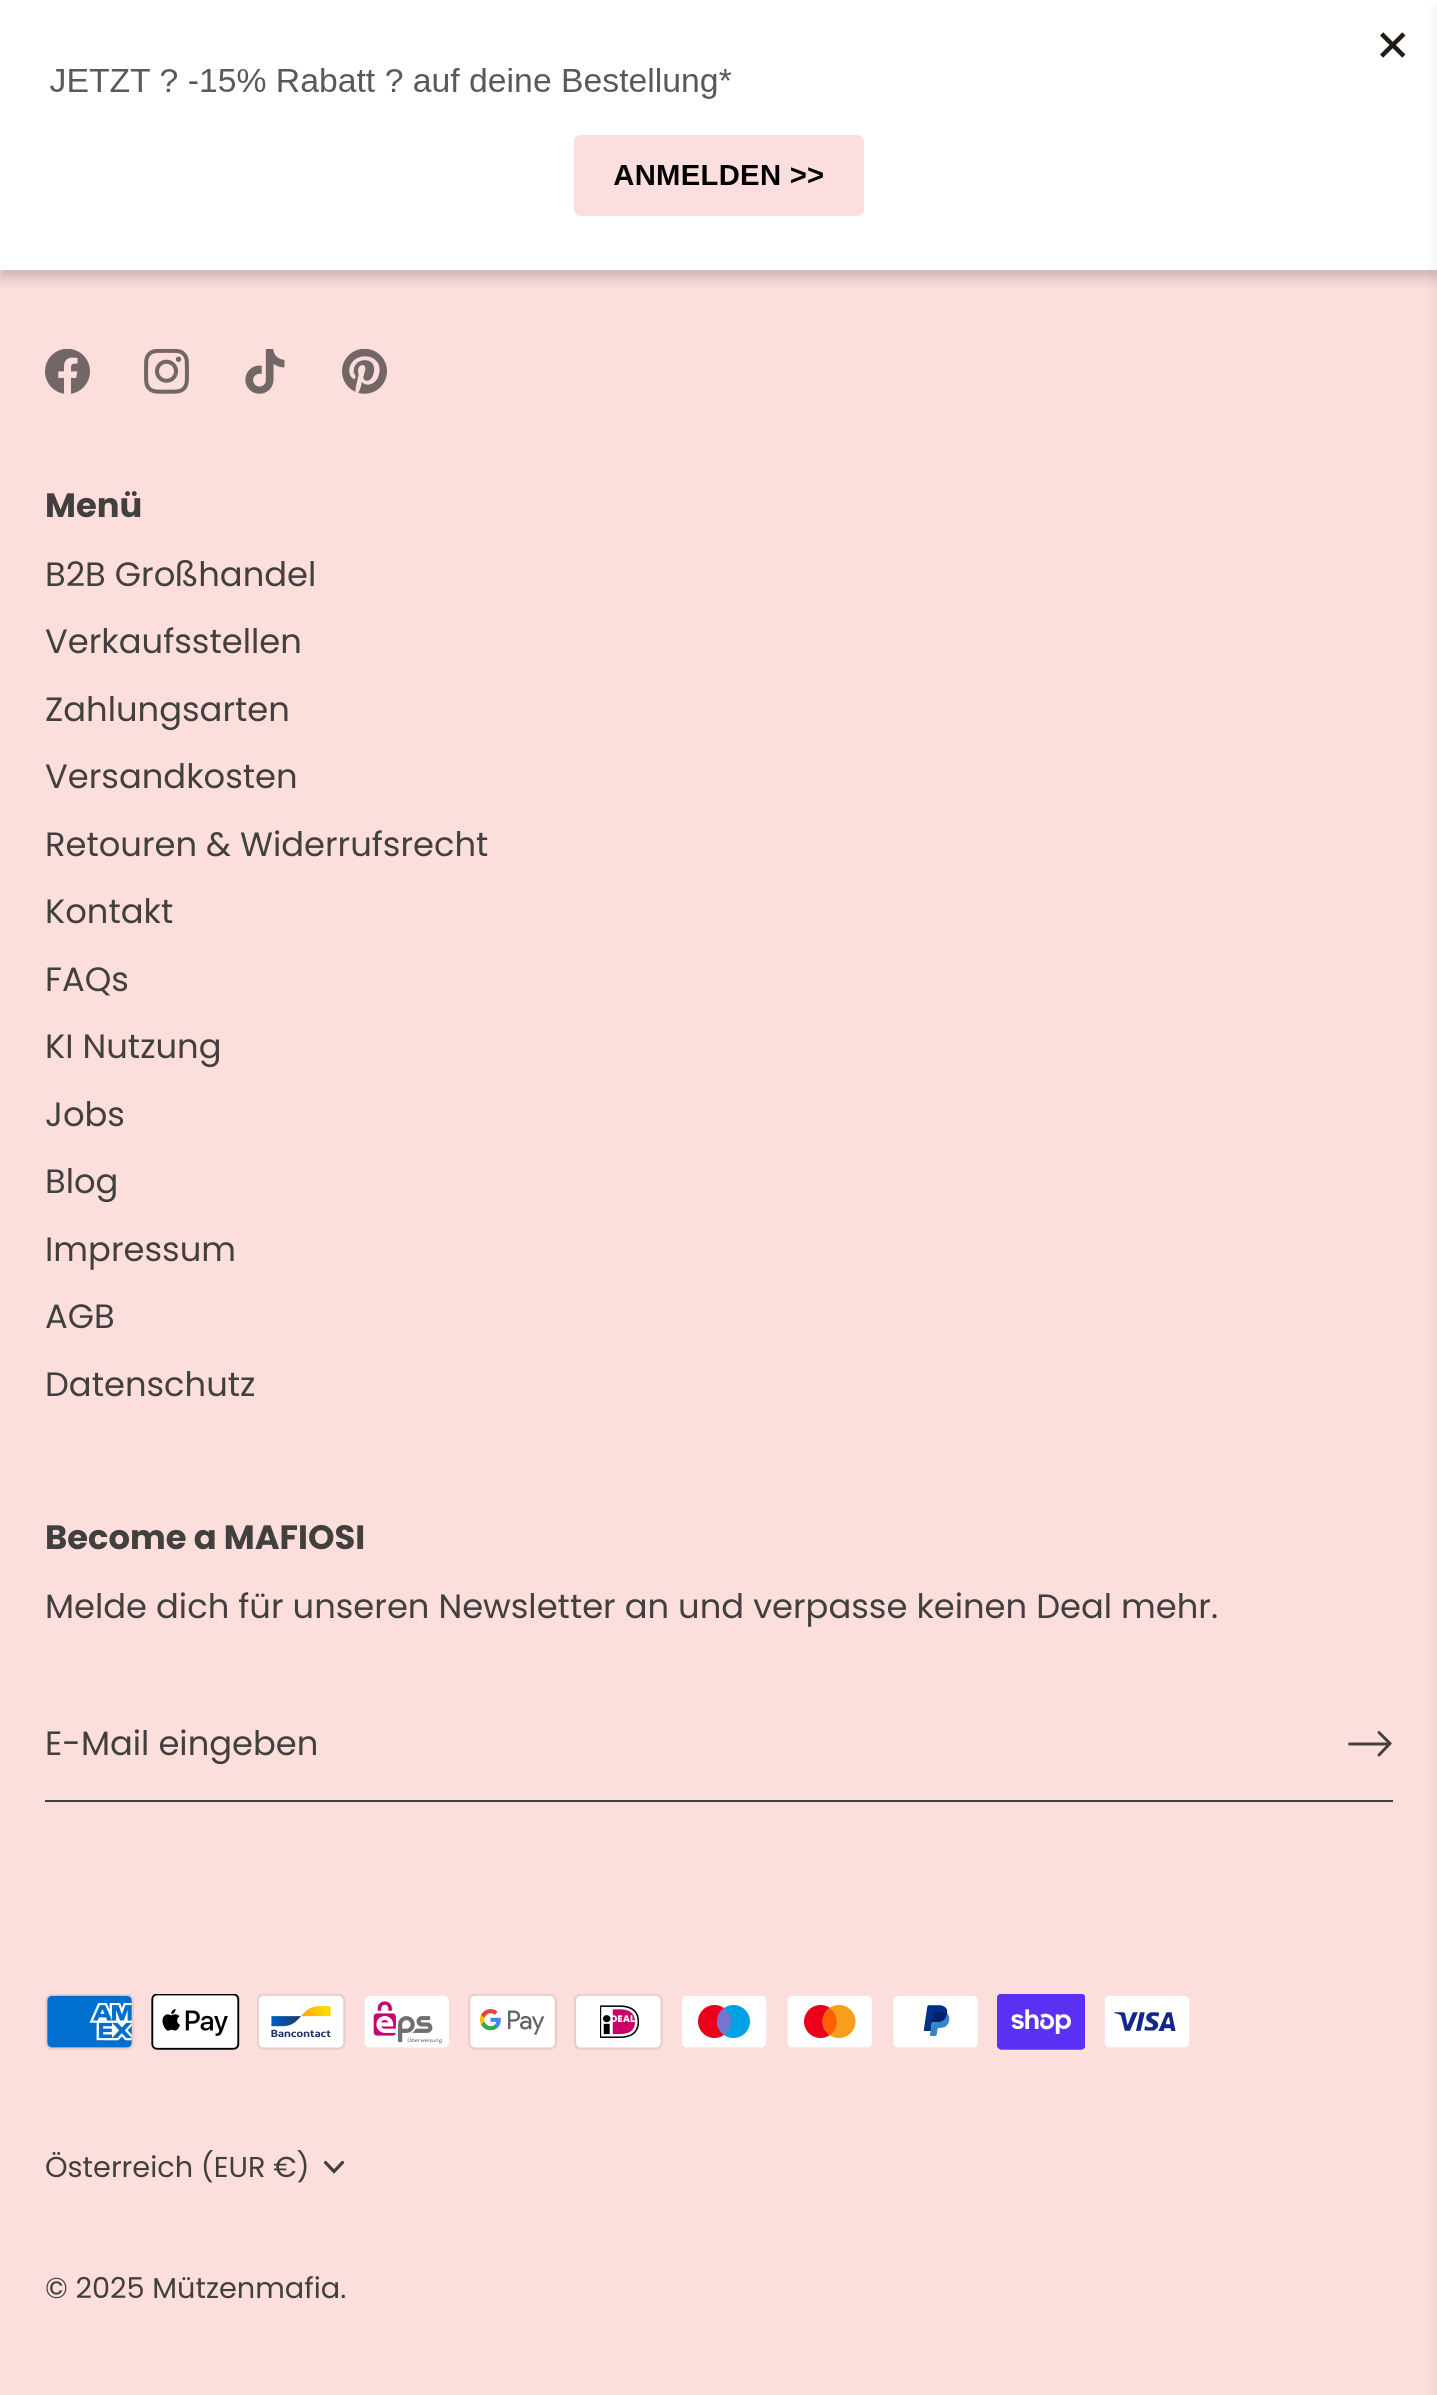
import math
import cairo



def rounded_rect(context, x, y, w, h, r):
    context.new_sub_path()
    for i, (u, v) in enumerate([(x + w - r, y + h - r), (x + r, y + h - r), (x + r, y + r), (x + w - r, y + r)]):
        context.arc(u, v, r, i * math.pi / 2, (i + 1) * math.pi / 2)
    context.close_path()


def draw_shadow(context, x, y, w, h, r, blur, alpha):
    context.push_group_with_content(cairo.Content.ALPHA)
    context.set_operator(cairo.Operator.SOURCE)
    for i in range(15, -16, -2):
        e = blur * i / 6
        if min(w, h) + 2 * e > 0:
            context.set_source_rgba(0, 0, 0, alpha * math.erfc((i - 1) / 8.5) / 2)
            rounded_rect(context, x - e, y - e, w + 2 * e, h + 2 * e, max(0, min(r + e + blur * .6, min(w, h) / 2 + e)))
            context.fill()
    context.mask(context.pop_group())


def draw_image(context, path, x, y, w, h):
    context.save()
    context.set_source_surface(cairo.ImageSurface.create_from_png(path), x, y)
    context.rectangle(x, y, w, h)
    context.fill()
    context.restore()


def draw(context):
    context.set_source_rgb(252 / 255, 222 / 255, 220 / 255)
    context.paint()
    context.set_source_rgb(0, 0, 0)
    draw_shadow(context, 0, 7, 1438, 270, 0, 7, 0.2)
    context.set_source_rgb(1, 1, 1)
    context.rectangle(0, 0, 1437, 270)
    context.fill()
    draw_image(context, "images/1.png", 50, 32, 1356, 184)
    draw_image(context, "images/2.png", 45, 349, 45, 45)
    draw_image(context, "images/3.png", 144, 349, 45, 45)
    draw_image(context, "images/4.png", 245, 349, 40, 45)
    draw_image(context, "images/5.png", 342, 349, 45, 45)
    context.set_source_rgb(66 / 255, 63 / 255, 63 / 255)
    context.rectangle(45, 1800, 1348, 2)
    context.fill()
    context.new_path()
    context.move_to(1379, 1755)
    context.line_to(1390, 1743.5)
    context.line_to(1379, 1732.5)
    context.set_line_width(2.9)
    context.set_line_cap(cairo.LineCap.ROUND)
    context.stroke()
    context.new_path()
    context.move_to(1389, 1744)
    context.line_to(1349.5, 1744)
    context.set_line_join(cairo.LineJoin.ROUND)
    context.stroke()
    draw_image(context, "images/6.png", 45, 1994, 89, 56)
    draw_image(context, "images/7.png", 151, 1994, 89, 56)
    draw_image(context, "images/8.png", 257, 1994, 89, 56)
    draw_image(context, "images/9.png", 364, 1995, 85, 53)
    draw_image(context, "images/10.png", 468, 1994, 89, 56)
    draw_image(context, "images/11.png", 574, 1994, 89, 56)
    draw_image(context, "images/12.png", 681, 1995, 86, 53)
    draw_image(context, "images/13.png", 787, 1995, 85, 53)
    draw_image(context, "images/14.png", 893, 1995, 85, 53)
    draw_image(context, "images/15.png", 997, 1994, 88, 56)
    draw_image(context, "images/16.png", 1104, 1995, 86, 53)
    context.new_path()
    context.move_to(325.5, 2162.5)
    context.line_to(334, 2171.5)
    context.line_to(342.5, 2162.5)
    context.set_line_width(3.2)
    context.set_line_join(cairo.LineJoin.MITER)
    context.stroke()
    context.set_source_rgb(0, 0, 0)
    draw_shadow(context, 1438, 9, 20, 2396, 0, 7, 0.1)
    context.select_font_face("Poppins", cairo.FontSlant.NORMAL, cairo.FontWeight.BOLD)
    context.set_font_size(33.75)
    context.set_source_rgb(66 / 255, 63 / 255, 63 / 255)
    context.move_to(45, 517)
    context.show_text("Menü")
    context.select_font_face("Poppins")
    context.move_to(45, 586)
    context.show_text("B2B Großhandel")
    context.move_to(45, 653)
    context.show_text("Verkaufsstellen")
    context.move_to(45, 721)
    context.show_text("Zahlungsarten")
    context.move_to(45, 788)
    context.show_text("Versandkosten")
    context.move_to(45, 856)
    context.show_text("Retouren & Widerrufsrecht")
    context.move_to(45, 923)
    context.show_text("Kontakt")
    context.move_to(45, 991)
    context.show_text("FAQs")
    context.move_to(45, 1058)
    context.show_text("KI Nutzung")
    context.move_to(45, 1126)
    context.show_text("Jobs")
    context.move_to(45, 1193)
    context.show_text("Blog")
    context.move_to(45, 1261)
    context.show_text("Impressum")
    context.move_to(45, 1328)
    context.show_text("AGB")
    context.move_to(45, 1396)
    context.show_text("Datenschutz")
    context.select_font_face("Poppins", cairo.FontSlant.NORMAL, cairo.FontWeight.BOLD)
    context.move_to(45, 1549)
    context.show_text("Become a MAFIOSI")
    context.select_font_face("Poppins")
    context.move_to(45, 1618)
    context.show_text("Melde dich für unseren Newsletter an und verpasse keinen Deal mehr.")
    context.move_to(45, 1755)
    context.show_text("E-Mail eingeben")
    context.set_font_size(28.75)
    context.move_to(45, 2177)
    context.show_text("Österreich (EUR €)")
    context.move_to(45, 2298)
    context.show_text("© 2025 Mützenmafia.")


surface = cairo.ImageSurface(cairo.Format.RGB24, 1437, 2395)
context = cairo.Context(surface)
options = cairo.FontOptions()
options.set_hint_metrics(cairo.HintMetrics.OFF)
options.set_hint_style(cairo.HintStyle.NONE)
context.set_font_options(options)
context.set_miter_limit(4)
draw(context)
surface.write_to_png("out.png")
